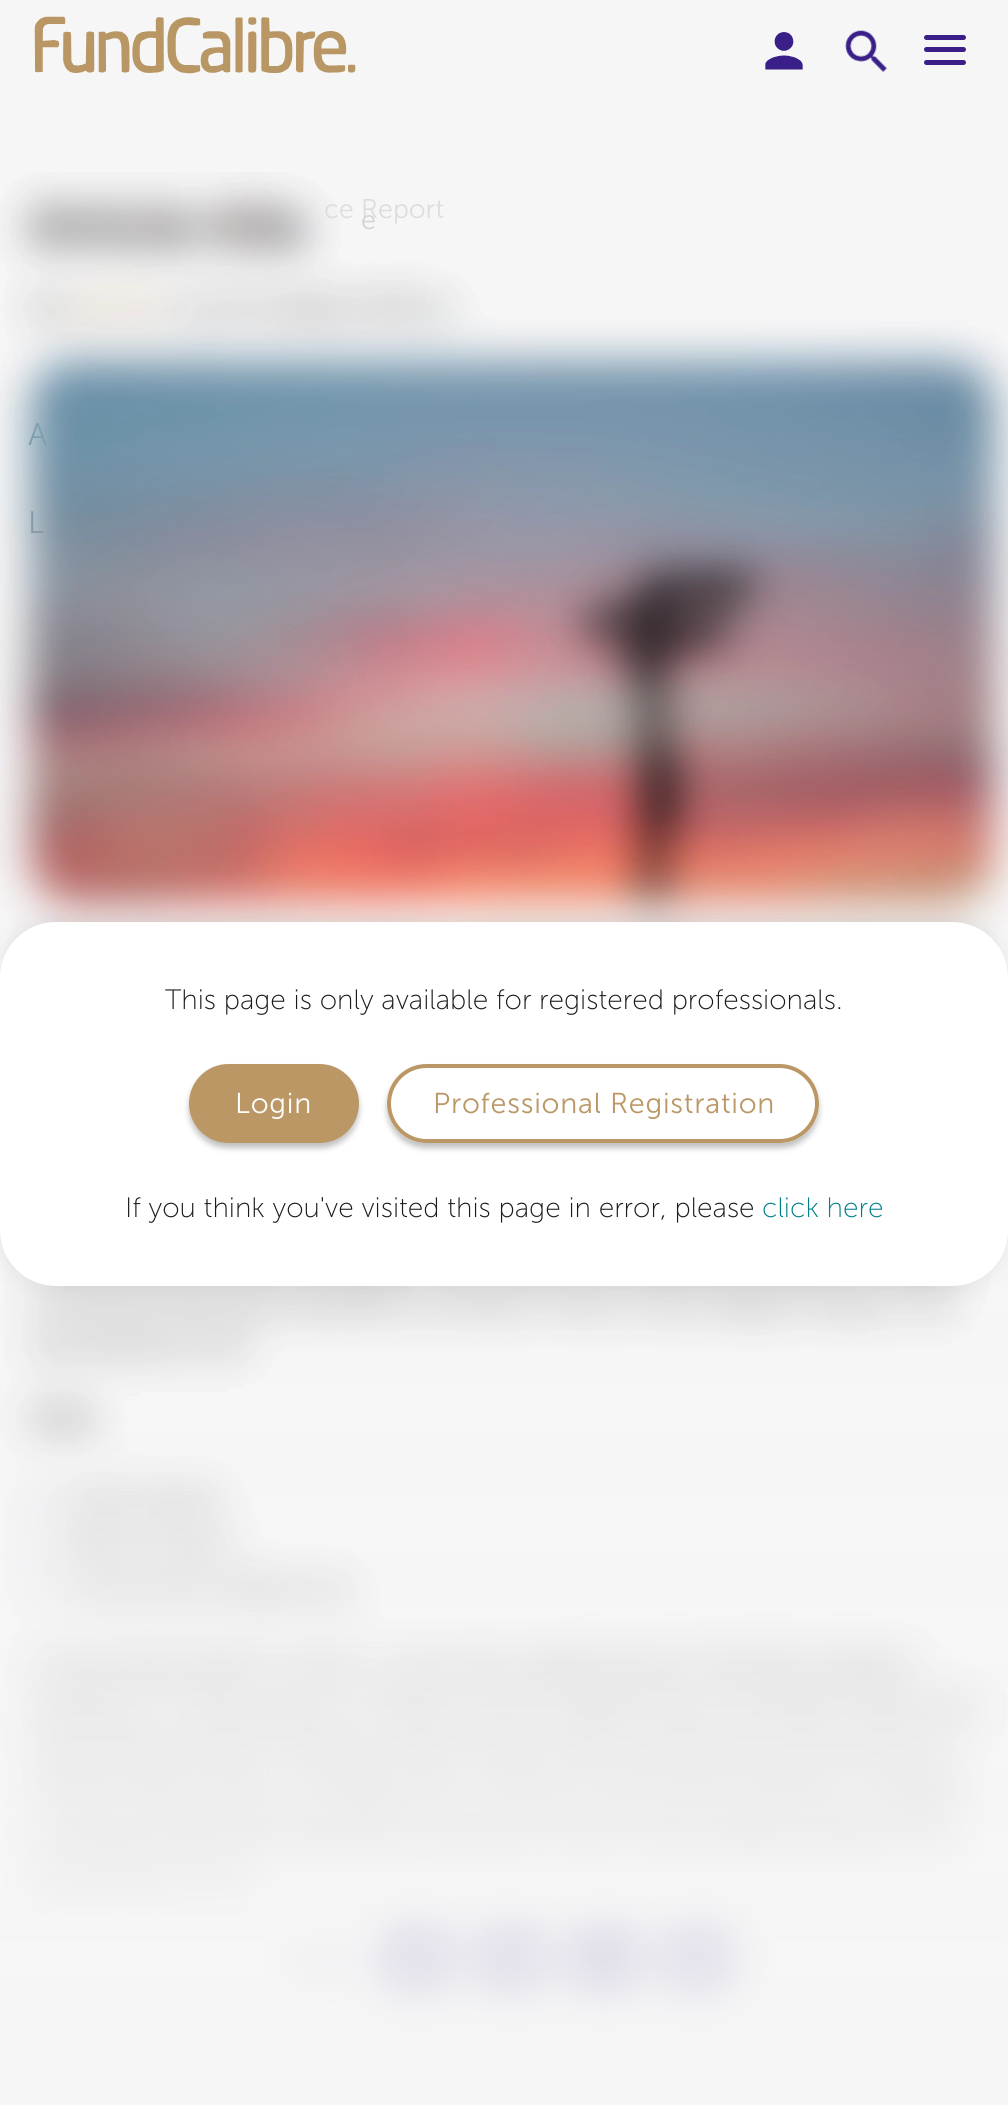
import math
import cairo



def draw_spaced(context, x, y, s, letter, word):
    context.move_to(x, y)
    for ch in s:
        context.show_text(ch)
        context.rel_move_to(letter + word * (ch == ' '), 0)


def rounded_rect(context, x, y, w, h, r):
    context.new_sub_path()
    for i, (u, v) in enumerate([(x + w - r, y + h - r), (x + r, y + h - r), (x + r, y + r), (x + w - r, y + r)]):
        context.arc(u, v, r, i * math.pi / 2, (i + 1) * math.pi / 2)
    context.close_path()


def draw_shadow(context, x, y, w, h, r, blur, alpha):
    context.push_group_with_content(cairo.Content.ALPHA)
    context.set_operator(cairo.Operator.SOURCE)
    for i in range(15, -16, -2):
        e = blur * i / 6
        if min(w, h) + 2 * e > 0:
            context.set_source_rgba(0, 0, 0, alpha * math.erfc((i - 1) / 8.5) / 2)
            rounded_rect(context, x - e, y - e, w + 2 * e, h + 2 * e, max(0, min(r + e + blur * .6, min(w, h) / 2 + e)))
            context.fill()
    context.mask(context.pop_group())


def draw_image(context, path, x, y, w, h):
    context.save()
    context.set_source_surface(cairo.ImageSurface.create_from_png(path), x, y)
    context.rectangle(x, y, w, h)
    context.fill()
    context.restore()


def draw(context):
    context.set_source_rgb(246 / 255, 246 / 255, 246 / 255)
    context.paint()
    draw_image(context, "images/1.png", 34, 16, 322, 58)
    draw_image(context, "images/2.png", 765, 32, 38, 38)
    draw_image(context, "images/3.png", 845, 30, 43, 42)
    context.set_source_rgb(57 / 255, 31 / 255, 135 / 255)
    rounded_rect(context, 924, 47, 42, 5, 2.5)
    context.fill()
    rounded_rect(context, 924, 35, 42, 5, 2.5)
    context.fill()
    rounded_rect(context, 924, 60, 42, 5, 2.5)
    context.fill()
    draw_image(context, "images/4.png", 0, 172, 1008, 1866)
    gradient = cairo.LinearGradient(504, 1104, 504, 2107)
    gradient.add_color_stop_rgba(0, 246 / 255, 246 / 255, 246 / 255, 0)
    gradient.add_color_stop_rgba(1, 246 / 255, 246 / 255, 246 / 255, 1)
    context.set_source(gradient)
    context.rectangle(2, 1230, 1000, 808)
    context.fill()
    context.set_source_rgb(70 / 255, 61 / 255, 48 / 255)
    draw_shadow(context, 0, 922, 1008, 364, 56, 10.5, 0.1)
    context.set_source_rgb(1, 1, 1)
    rounded_rect(context, 0, 922, 1008, 364, 56)
    context.fill()
    context.set_source_rgb(0, 0, 0)
    draw_shadow(context, 189, 1069, 170, 79, 39.5, 3, 0.25)
    context.set_source_rgb(186 / 255, 151 / 255, 101 / 255)
    rounded_rect(context, 191, 1066, 166, 75, 37.5)
    context.fill_preserve()
    context.set_line_width(4)
    context.stroke()
    context.save()
    context.set_fill_rule(cairo.FillRule.EVEN_ODD)
    context.new_path()
    context.move_to(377, 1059)
    context.line_to(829, 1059)
    context.line_to(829, 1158)
    context.line_to(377, 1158)
    context.close_path()
    context.move_to(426.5, 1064)
    context.line_to(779.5, 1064)
    context.curve_to(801.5, 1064, 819, 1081.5, 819, 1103.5)
    context.curve_to(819, 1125.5, 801.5, 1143, 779.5, 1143)
    context.line_to(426.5, 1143)
    context.curve_to(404.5, 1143, 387, 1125.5, 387, 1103.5)
    context.curve_to(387, 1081.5, 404.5, 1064, 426.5, 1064)
    context.close_path()
    context.clip()
    context.set_source_rgb(0, 0, 0)
    draw_shadow(context, 387, 1069, 432, 79, 39.5, 3, 0.25)
    context.restore()
    rounded_rect(context, 389, 1066, 428, 75, 37.5)
    context.stroke()
    context.select_font_face("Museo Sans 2 Light")
    context.set_font_size(27)
    context.set_source_rgb(221 / 255, 221 / 255, 221 / 255)
    context.move_to(324, 218)
    context.show_text("ce Report")
    context.set_source_rgb(212 / 255, 211 / 255, 212 / 255)
    context.move_to(361, 229)
    context.show_text("e")
    context.set_font_size(31)
    context.set_source_rgb(126 / 255, 158 / 255, 177 / 255)
    context.move_to(28, 445)
    context.show_text("A")
    context.set_source_rgb(134 / 255, 153 / 255, 169 / 255)
    context.move_to(28, 533)
    context.show_text("L")
    context.select_font_face("Museo Sans Light")
    context.set_font_size(28)
    context.set_source_rgb(27 / 255, 27 / 255, 27 / 255)
    context.move_to(165, 1009)
    context.show_text("This page is only available for registered professionals.")
    context.select_font_face("Museo Sans 2 Light")
    context.set_font_size(28.75)
    context.set_source_rgb(1, 1, 1)
    draw_spaced(context, 235, 1113, "Login", 0.75, 0)
    context.set_source_rgb(186 / 255, 151 / 255, 101 / 255)
    draw_spaced(context, 433, 1113, "Professional Registration", 0.75, 0)
    context.select_font_face("Museo Sans Light")
    context.set_font_size(28)
    context.set_source_rgb(27 / 255, 27 / 255, 27 / 255)
    context.move_to(125, 1217)
    context.show_text("If you think you've visited this page in error, please")
    context.set_source_rgb(0, 128 / 255, 136 / 255)
    context.move_to(762, 1217)
    context.show_text("click here")


surface = cairo.ImageSurface(cairo.Format.RGB24, 1008, 2105)
context = cairo.Context(surface)
options = cairo.FontOptions()
options.set_hint_metrics(cairo.HintMetrics.OFF)
options.set_hint_style(cairo.HintStyle.NONE)
context.set_font_options(options)
context.set_miter_limit(4)
draw(context)
surface.write_to_png("out.png")
